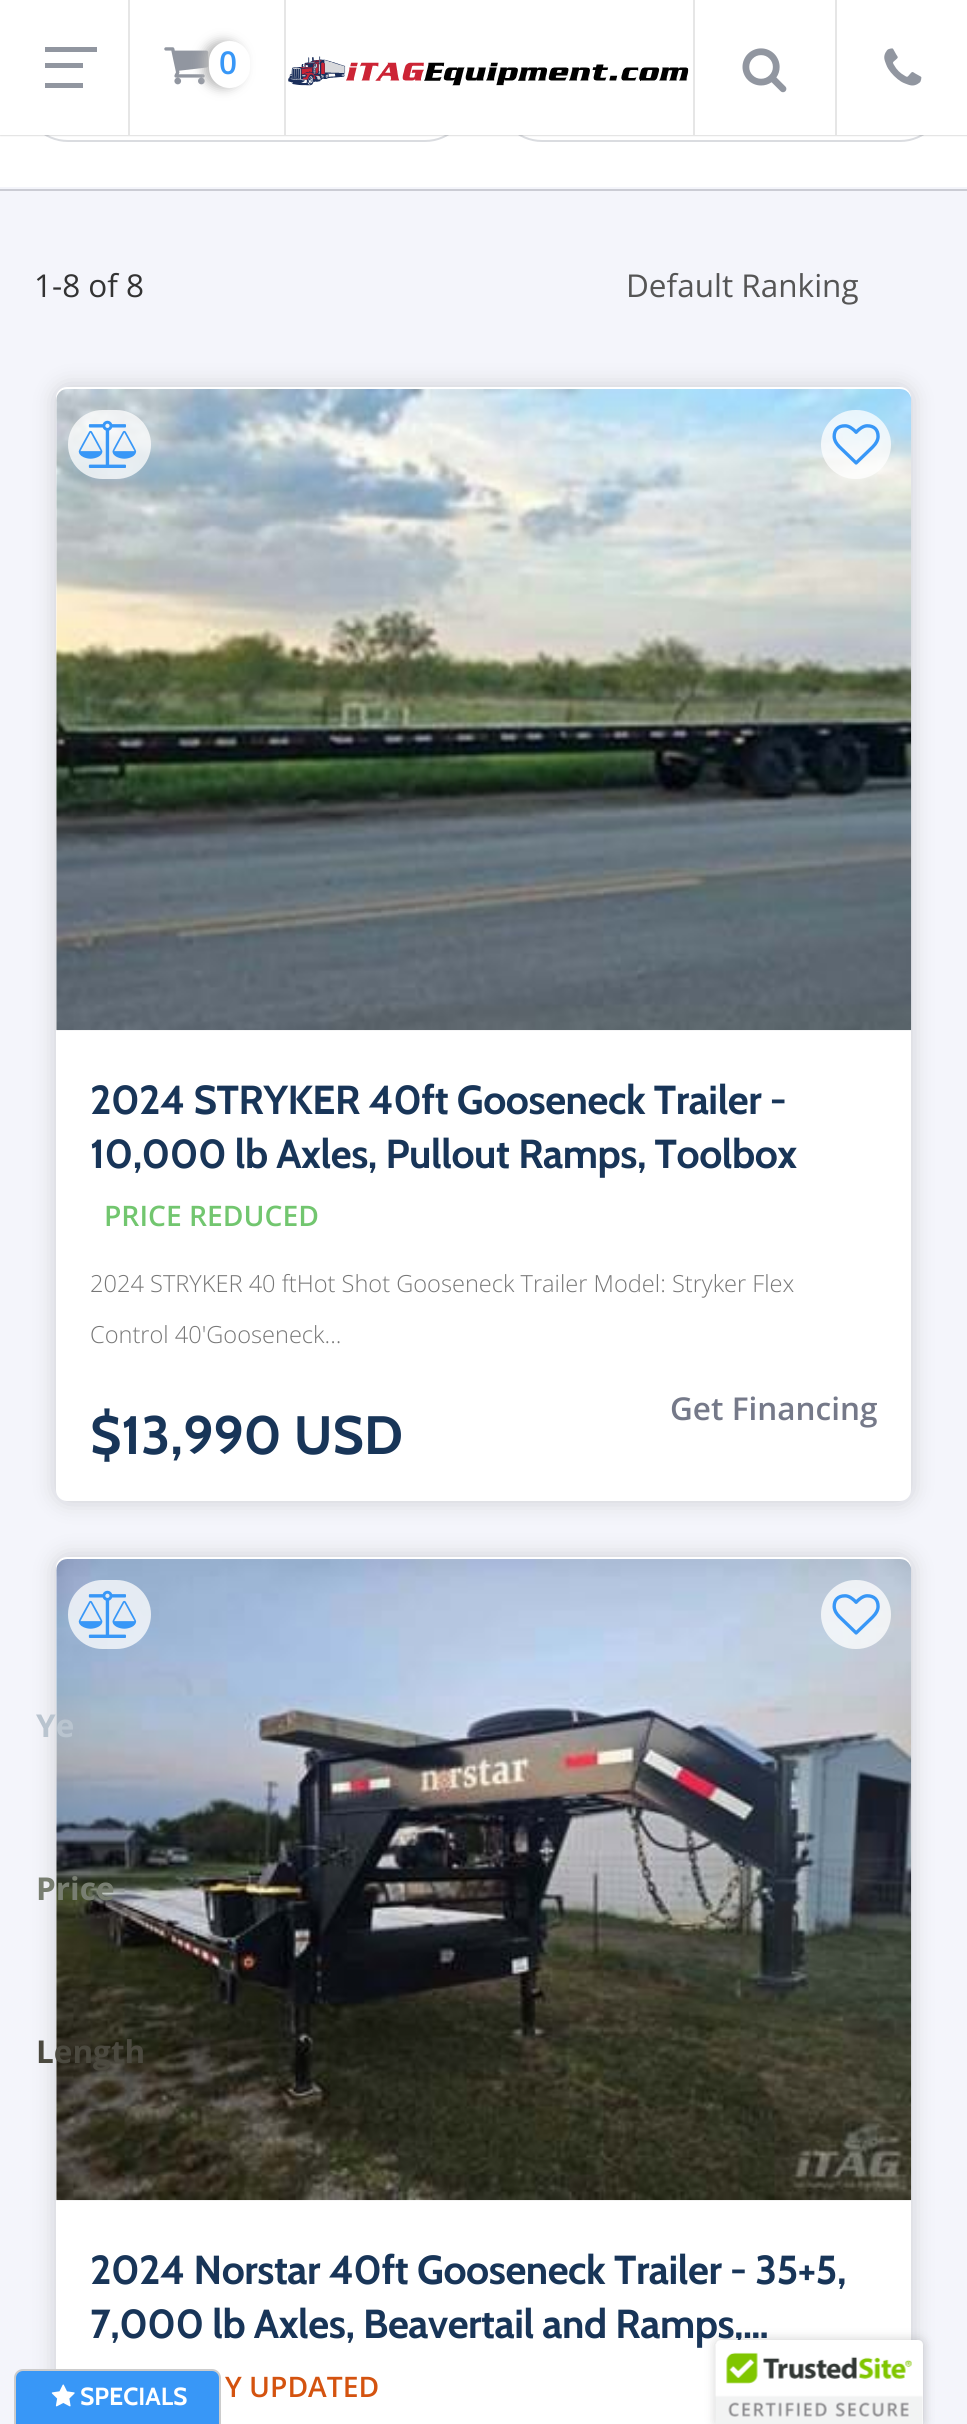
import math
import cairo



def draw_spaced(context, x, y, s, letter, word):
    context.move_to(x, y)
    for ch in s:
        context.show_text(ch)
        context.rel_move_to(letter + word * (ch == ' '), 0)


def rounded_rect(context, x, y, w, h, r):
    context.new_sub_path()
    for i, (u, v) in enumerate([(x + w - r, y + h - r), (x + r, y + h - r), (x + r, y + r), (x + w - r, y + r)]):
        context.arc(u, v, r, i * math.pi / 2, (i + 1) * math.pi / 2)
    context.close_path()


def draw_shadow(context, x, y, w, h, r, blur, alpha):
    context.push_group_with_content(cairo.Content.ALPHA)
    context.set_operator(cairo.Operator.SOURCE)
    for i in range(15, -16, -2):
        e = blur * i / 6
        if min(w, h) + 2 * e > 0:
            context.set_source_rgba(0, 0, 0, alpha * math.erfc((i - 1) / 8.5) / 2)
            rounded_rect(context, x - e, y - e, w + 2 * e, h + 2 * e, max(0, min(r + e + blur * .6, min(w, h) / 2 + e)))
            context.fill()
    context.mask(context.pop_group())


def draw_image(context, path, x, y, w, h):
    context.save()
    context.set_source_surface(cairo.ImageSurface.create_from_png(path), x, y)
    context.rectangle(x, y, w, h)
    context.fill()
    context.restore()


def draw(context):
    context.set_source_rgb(1, 1, 1)
    context.paint()
    rounded_rect(context, 24, 42, 445, 99, 44)
    context.set_source_rgb(218 / 255, 220 / 255, 224 / 255)
    context.stroke()
    rounded_rect(context, 498, 42, 446, 99, 44)
    context.stroke()
    context.set_source_rgb(0, 0, 0)
    draw_shadow(context, 0, 0, 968, 135, 0, 1, 0.3)
    context.set_source_rgb(1, 1, 1)
    context.rectangle(0, 0, 967, 135)
    context.fill()
    context.set_source_rgb(230 / 255, 230 / 255, 230 / 255)
    context.rectangle(128, 0, 2, 135)
    context.fill()
    context.set_source_rgb(145 / 255, 150 / 255, 160 / 255)
    context.rectangle(45, 63, 38, 5)
    context.fill()
    context.rectangle(45, 47, 52, 5)
    context.fill()
    context.rectangle(45, 83, 38, 5)
    context.fill()
    context.set_source_rgb(230 / 255, 230 / 255, 230 / 255)
    context.rectangle(284, 0, 2, 135)
    context.fill()
    draw_image(context, "images/1.png", 164, 47, 45, 38)
    context.set_source_rgb(184 / 255, 184 / 255, 184 / 255)
    draw_shadow(context, 203, 41, 40, 47, 20, 5.5, 1)
    context.set_source_rgb(1, 1, 1)
    rounded_rect(context, 209, 41, 41, 47, 20.5)
    context.fill()
    draw_image(context, "images/2.png", 288, 56, 401, 30)
    context.set_source_rgb(230 / 255, 230 / 255, 230 / 255)
    context.rectangle(693, 0, 2, 135)
    context.fill()
    draw_image(context, "images/3.png", 742, 48, 45, 45)
    context.rectangle(835, 0, 2, 135)
    context.fill()
    draw_image(context, "images/4.png", 884, 48, 38, 38)
    context.set_source_rgb(244 / 255, 245 / 255, 251 / 255)
    context.rectangle(0, 191, 967, 2233)
    context.fill()
    context.set_source_rgb(203 / 255, 204 / 255, 212 / 255)
    context.rectangle(0, 189, 967, 2)
    context.fill()
    context.set_source_rgb(128 / 255, 128 / 255, 128 / 255)
    draw_shadow(context, 56, 387, 855, 1114, 11, 11, 0.35)
    context.set_source_rgb(1, 1, 1)
    rounded_rect(context, 56, 387, 855, 1114, 11)
    context.fill()
    draw_image(context, "images/5.png", 56, 389, 856, 642)
    context.set_source_rgba(1, 1, 1, 0.75)
    rounded_rect(context, 68, 410, 83, 69, 34.5)
    context.fill()
    draw_image(context, "images/6.png", 78, 420, 59, 48)
    rounded_rect(context, 821, 410, 70, 69, 34.5)
    context.fill()
    draw_image(context, "images/7.png", 832, 424, 48, 41)
    context.set_source_rgb(128 / 255, 128 / 255, 128 / 255)
    draw_shadow(context, 56, 1557, 855, 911, 11, 11, 0.35)
    context.set_source_rgb(1, 1, 1)
    rounded_rect(context, 56, 1557, 855, 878, 11)
    context.fill()
    draw_image(context, "images/8.png", 56, 1559, 856, 642)
    context.set_source_rgba(1, 1, 1, 0.75)
    rounded_rect(context, 68, 1580, 83, 69, 34.5)
    context.fill()
    draw_image(context, "images/9.png", 78, 1590, 59, 48)
    rounded_rect(context, 821, 1580, 70, 69, 34.5)
    context.fill()
    draw_image(context, "images/10.png", 832, 1594, 48, 41)
    context.set_source_rgb(244 / 255, 245 / 255, 251 / 255)
    context.rectangle(0, 187, 967, 2)
    context.fill()
    context.set_source_rgb(56 / 255, 151 / 255, 247 / 255)
    rounded_rect(context, 15, 2370, 205, 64, 8)
    context.fill_preserve()
    context.set_source_rgb(204 / 255, 204 / 255, 204 / 255)
    context.stroke()
    draw_image(context, "images/11.png", 51, 2384, 24, 23)
    context.set_source_rgb(0, 0, 0)
    draw_shadow(context, 716, 2340, 207, 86, 5, 5.5, 0.2)
    context.select_font_face("Open Sans SemiBold")
    context.set_font_size(31.5)
    context.set_source_rgb(56 / 255, 151 / 255, 247 / 255)
    context.move_to(219, 74)
    context.show_text("0")
    context.select_font_face("Open Sans")
    context.set_source_rgb(51 / 255, 51 / 255, 51 / 255)
    context.move_to(34, 297)
    context.show_text("1-8 of 8")
    context.set_source_rgb(85 / 255, 85 / 255, 85 / 255)
    context.move_to(626, 297)
    context.show_text("Default Ranking")
    context.select_font_face("Cabin", cairo.FontSlant.NORMAL, cairo.FontWeight.BOLD)
    context.set_font_size(40.5)
    context.set_source_rgb(24 / 255, 53 / 255, 88 / 255)
    draw_spaced(context, 90, 1114, "2024 STRYKER 40ft Gooseneck Trailer -", -0.45, 0)
    draw_spaced(context, 90, 1168, "10,000 lb Axles, Pullout Ramps, Toolbox", -0.45, 0)
    context.select_font_face("Open Sans SemiBold")
    context.set_font_size(28.25)
    context.set_source_rgb(114 / 255, 198 / 255, 111 / 255)
    context.move_to(104, 1226)
    context.show_text("PRICE REDUCED")
    context.select_font_face("Open Sans Light")
    context.set_font_size(23.6)
    context.set_source_rgb(119 / 255, 119 / 255, 119 / 255)
    context.move_to(90, 1292)
    context.show_text("2024 STRYKER 40 ftHot Shot Gooseneck Trailer Model: Stryker Flex")
    context.move_to(90, 1343)
    context.show_text("Control 40'Gooseneck...")
    context.select_font_face("Cabin", cairo.FontSlant.NORMAL, cairo.FontWeight.BOLD)
    context.set_font_size(54)
    context.set_source_rgb(24 / 255, 53 / 255, 88 / 255)
    context.move_to(90, 1454)
    context.show_text("$13,990 USD")
    context.select_font_face("Open Sans SemiBold")
    context.set_font_size(31.5)
    context.set_source_rgb(117 / 255, 121 / 255, 137 / 255)
    context.move_to(670, 1420)
    context.show_text("Get Financing")
    context.select_font_face("Cabin", cairo.FontSlant.NORMAL, cairo.FontWeight.BOLD)
    context.set_font_size(40.5)
    context.set_source_rgb(24 / 255, 53 / 255, 88 / 255)
    draw_spaced(context, 90, 2284, "2024 Norstar 40ft Gooseneck Trailer - 35+5,", -0.45, 0)
    draw_spaced(context, 90, 2338, "7,000 lb Axles, Beavertail and Ramps,…", -0.45, 0)
    context.select_font_face("Open Sans SemiBold")
    context.set_font_size(28.25)
    context.set_source_rgb(212 / 255, 83 / 255, 15 / 255)
    context.move_to(225, 2397)
    context.show_text("Y UPDATED")
    context.select_font_face("Open Sans", cairo.FontSlant.NORMAL, cairo.FontWeight.BOLD)
    context.set_font_size(31.5)
    context.set_source_rgb(185 / 255, 196 / 255, 207 / 255)
    context.move_to(36, 1737)
    context.show_text("Ye")
    context.set_source_rgb(120 / 255, 126 / 255, 113 / 255)
    context.move_to(36, 1900)
    context.show_text("Price")
    context.set_source_rgb(75 / 255, 73 / 255, 63 / 255)
    context.move_to(36, 2063)
    context.show_text("Length")
    context.select_font_face("Cabin", cairo.FontSlant.NORMAL, cairo.FontWeight.BOLD)
    context.set_font_size(24.75)
    context.set_source_rgb(1, 1, 1)
    context.move_to(80, 2405)
    context.show_text("SPECIALS")
    context.new_path()
    context.move_to(721, 2340)
    context.line_to(918, 2340)
    context.curve_to(921, 2340, 923, 2342, 923, 2345)
    context.line_to(923, 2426)
    context.line_to(716, 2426)
    context.line_to(716, 2345)
    context.curve_to(716, 2342, 718, 2340, 721, 2340)
    context.close_path()
    context.fill()
    draw_image(context, "images/12.png", 715, 2344, 208, 80)


surface = cairo.ImageSurface(cairo.Format.RGB24, 967, 2424)
context = cairo.Context(surface)
options = cairo.FontOptions()
options.set_hint_metrics(cairo.HintMetrics.OFF)
options.set_hint_style(cairo.HintStyle.NONE)
context.set_font_options(options)
context.set_miter_limit(4)
draw(context)
surface.write_to_png("out.png")
